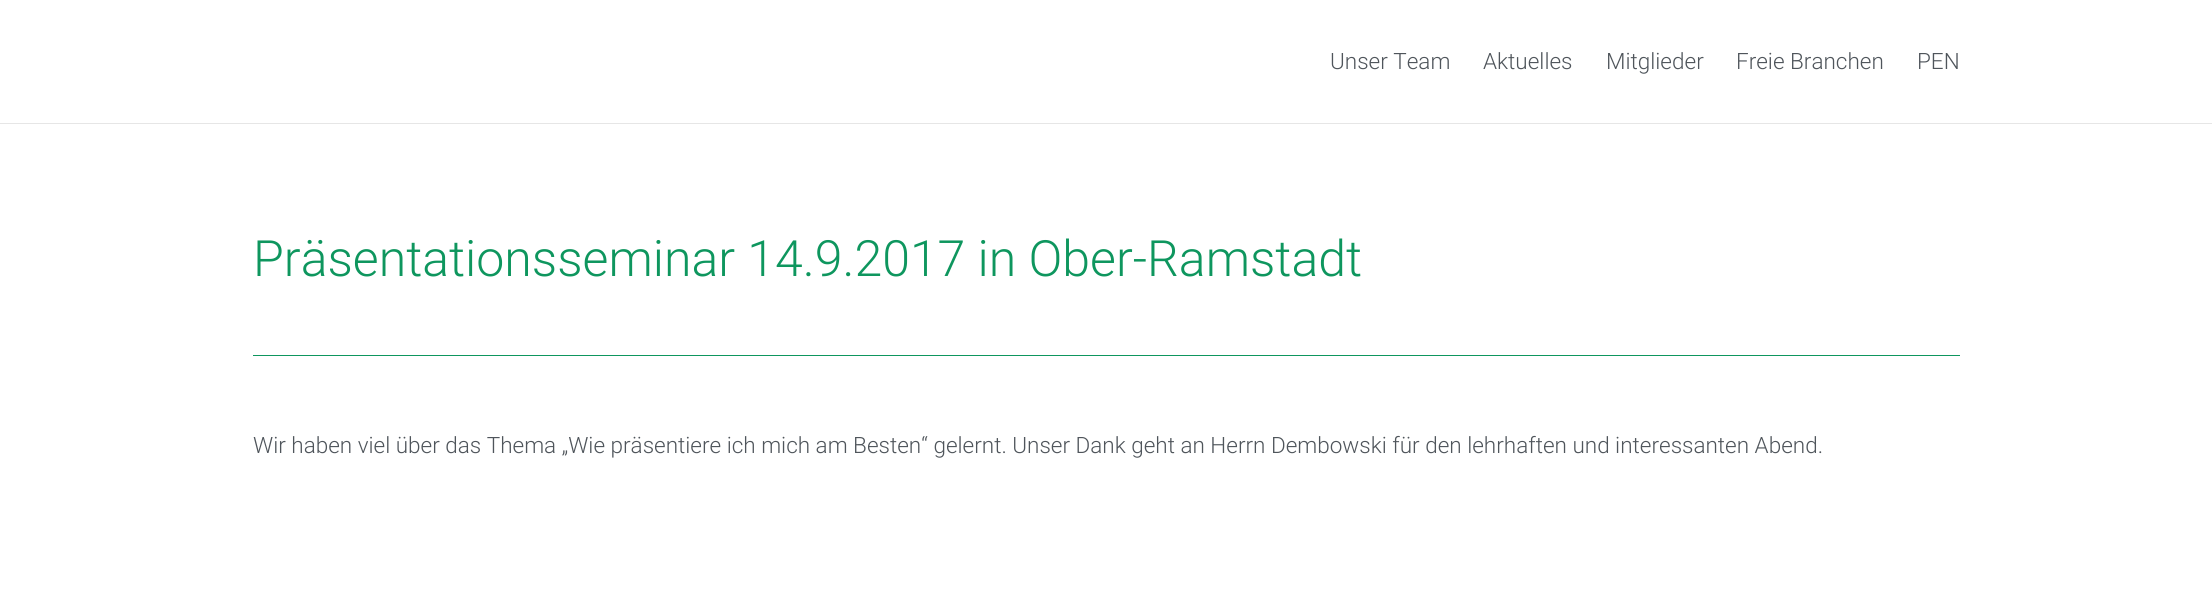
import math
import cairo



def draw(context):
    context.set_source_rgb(1, 1, 1)
    context.paint()
    context.set_source_rgb(230 / 255, 230 / 255, 230 / 255)
    context.new_path()
    context.move_to(0, 122)
    context.line_to(0, 124)
    context.line_to(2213, 124)
    context.line_to(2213, 1)
    context.line_to(2212, 1)
    context.line_to(2212, 122)
    context.close_path()
    context.fill()
    context.set_source_rgb(1, 1, 1)
    context.rectangle(0, 122, 2212, 1)
    context.fill()
    context.set_source_rgb(14 / 255, 150 / 255, 94 / 255)
    context.rectangle(253, 355, 1707, 1)
    context.fill()
    context.select_font_face("Roboto Light")
    context.set_font_size(22.5)
    context.set_source_rgb(79 / 255, 85 / 255, 91 / 255)
    context.move_to(1330, 69)
    context.show_text("Unser Team")
    context.move_to(1483, 69)
    context.show_text("Aktuelles")
    context.move_to(1606, 69)
    context.show_text("Mitglieder")
    context.move_to(1736, 69)
    context.show_text("Freie Branchen")
    context.move_to(1917, 69)
    context.show_text("PEN")
    context.set_font_size(50)
    context.set_source_rgb(14 / 255, 150 / 255, 94 / 255)
    context.move_to(253, 276)
    context.show_text("Präsentationsseminar 14.9.2017 in Ober-Ramstadt")
    context.set_font_size(22.5)
    context.set_source_rgb(79 / 255, 85 / 255, 91 / 255)
    context.move_to(253, 453)
    context.show_text("Wir haben viel über das Thema „Wie präsentiere ich mich am Besten“ gelernt. Unser Dank geht an Herrn Dembowski für den lehrhaften und interessanten Abend.")


surface = cairo.ImageSurface(cairo.Format.RGB24, 2212, 601)
context = cairo.Context(surface)
options = cairo.FontOptions()
options.set_hint_metrics(cairo.HintMetrics.OFF)
options.set_hint_style(cairo.HintStyle.NONE)
context.set_font_options(options)
context.set_miter_limit(4)
draw(context)
surface.write_to_png("out.png")
